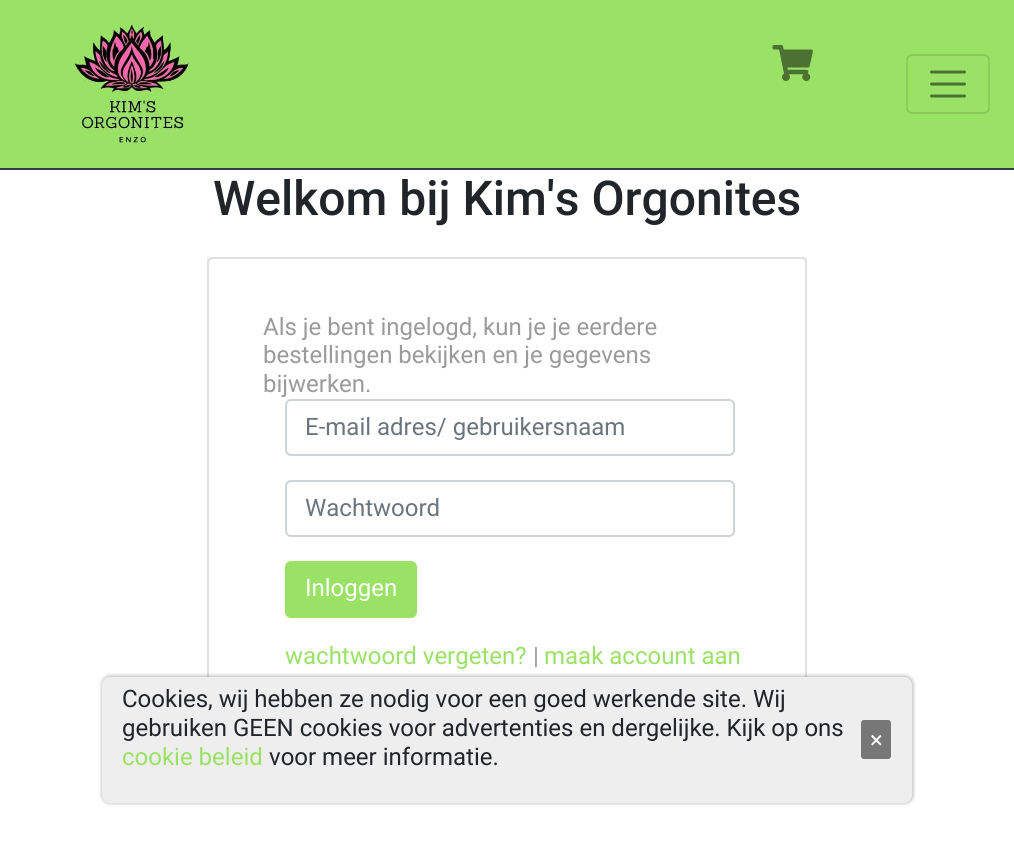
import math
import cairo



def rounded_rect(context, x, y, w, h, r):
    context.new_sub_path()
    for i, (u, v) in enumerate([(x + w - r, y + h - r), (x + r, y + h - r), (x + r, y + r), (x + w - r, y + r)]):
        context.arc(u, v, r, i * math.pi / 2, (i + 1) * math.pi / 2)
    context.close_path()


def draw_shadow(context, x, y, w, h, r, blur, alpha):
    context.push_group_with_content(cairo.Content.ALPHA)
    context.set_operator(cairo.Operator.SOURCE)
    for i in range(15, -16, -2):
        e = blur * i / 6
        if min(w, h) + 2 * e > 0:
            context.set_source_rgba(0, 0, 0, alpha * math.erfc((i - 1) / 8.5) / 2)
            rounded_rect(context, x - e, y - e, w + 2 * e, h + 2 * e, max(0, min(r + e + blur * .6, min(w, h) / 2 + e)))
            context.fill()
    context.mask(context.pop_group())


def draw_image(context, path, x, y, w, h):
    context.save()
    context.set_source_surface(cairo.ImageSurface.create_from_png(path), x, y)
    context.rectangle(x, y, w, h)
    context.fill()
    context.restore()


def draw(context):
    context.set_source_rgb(1, 1, 1)
    context.paint()
    context.set_source_rgb(154 / 255, 226 / 255, 101 / 255)
    context.rectangle(0, 0, 1014, 168)
    context.fill()
    context.set_source_rgb(52 / 255, 58 / 255, 64 / 255)
    context.rectangle(0, 168, 1014, 2)
    context.fill()
    draw_image(context, "images/1.png", 74, 25, 116, 119)
    draw_image(context, "images/2.png", 772, 45, 41, 36)
    rounded_rect(context, 907, 55, 82, 58, 5)
    context.set_source_rgb(139 / 255, 203 / 255, 91 / 255)
    context.stroke()
    context.new_path()
    context.move_to(931.5, 72)
    context.line_to(964.5, 72)
    context.move_to(931.5, 84)
    context.line_to(964.5, 84)
    context.move_to(931.5, 96)
    context.line_to(964.5, 96)
    context.set_source_rgb(77 / 255, 113 / 255, 51 / 255)
    context.set_line_width(3)
    context.set_line_cap(cairo.LineCap.ROUND)
    context.stroke()
    context.set_source_rgb(241 / 255, 241 / 255, 241 / 255)
    context.rectangle(207, 257, 600, 6)
    context.fill()
    context.set_source_rgb(1, 1, 1)
    rounded_rect(context, 207, 257, 600, 469, 6)
    context.fill()
    rounded_rect(context, 208, 258, 598, 467, 5)
    context.set_source_rgba(0, 0, 0, 0.12)
    context.set_line_width(2)
    context.set_line_cap(cairo.LineCap.BUTT)
    context.stroke()
    rounded_rect(context, 286, 400, 448, 55, 5)
    context.set_source_rgb(206 / 255, 212 / 255, 218 / 255)
    context.stroke()
    rounded_rect(context, 286, 481, 448, 55, 5)
    context.stroke()
    context.set_source_rgb(154 / 255, 226 / 255, 101 / 255)
    rounded_rect(context, 286, 562, 130, 55, 5)
    context.fill_preserve()
    context.stroke()
    context.set_source_rgb(0, 0, 0)
    draw_shadow(context, 101, 675, 813, 129, 9, 1.5, 0.2)
    context.set_source_rgb(238 / 255, 238 / 255, 238 / 255)
    rounded_rect(context, 102, 677, 810, 126, 8)
    context.fill()
    context.set_source_rgb(119 / 255, 119 / 255, 119 / 255)
    rounded_rect(context, 861, 720, 30, 39, 3)
    context.fill()
    context.select_font_face("Roboto Medium")
    context.set_font_size(48)
    context.set_source_rgb(33 / 255, 37 / 255, 41 / 255)
    context.move_to(213, 215)
    context.show_text("Welkom bij Kim's Orgonites")
    context.select_font_face("Roboto")
    context.set_font_size(24)
    context.set_source_rgb(155 / 255, 155 / 255, 155 / 255)
    context.move_to(263, 335)
    context.show_text("Als je bent ingelogd, kun je je eerdere")
    context.move_to(263, 363)
    context.show_text("bestellingen bekijken en je gegevens")
    context.move_to(263, 392)
    context.show_text("bijwerken.")
    context.set_source_rgb(108 / 255, 117 / 255, 125 / 255)
    context.move_to(305, 435)
    context.show_text("E-mail adres/ gebruikersnaam")
    context.move_to(305, 516)
    context.show_text("Wachtwoord")
    context.set_source_rgb(1, 1, 1)
    context.move_to(305, 596)
    context.show_text("Inloggen")
    context.set_source_rgb(154 / 255, 226 / 255, 101 / 255)
    context.move_to(285, 664)
    context.show_text("wachtwoord vergeten?")
    context.set_source_rgb(155 / 255, 155 / 255, 155 / 255)
    context.move_to(533, 664)
    context.show_text("|")
    context.set_source_rgb(154 / 255, 226 / 255, 101 / 255)
    context.move_to(544, 664)
    context.show_text("maak account aan")
    context.set_source_rgb(33 / 255, 37 / 255, 41 / 255)
    context.move_to(122, 707)
    context.show_text("Cookies, wij hebben ze nodig voor een goed werkende site. Wij")
    context.move_to(122, 736)
    context.show_text("gebruiken GEEN cookies voor advertenties en dergelijke. Kijk op ons")
    context.set_source_rgb(154 / 255, 226 / 255, 101 / 255)
    context.move_to(122, 765)
    context.show_text("cookie beleid")
    context.set_source_rgb(33 / 255, 37 / 255, 41 / 255)
    context.move_to(269, 765)
    context.show_text("voor meer informatie.")
    context.set_source_rgb(1, 1, 1)
    context.move_to(870, 748)
    context.show_text("×")


surface = cairo.ImageSurface(cairo.Format.RGB24, 1014, 862)
context = cairo.Context(surface)
options = cairo.FontOptions()
options.set_hint_metrics(cairo.HintMetrics.OFF)
options.set_hint_style(cairo.HintStyle.NONE)
context.set_font_options(options)
context.set_miter_limit(4)
draw(context)
surface.write_to_png("out.png")
